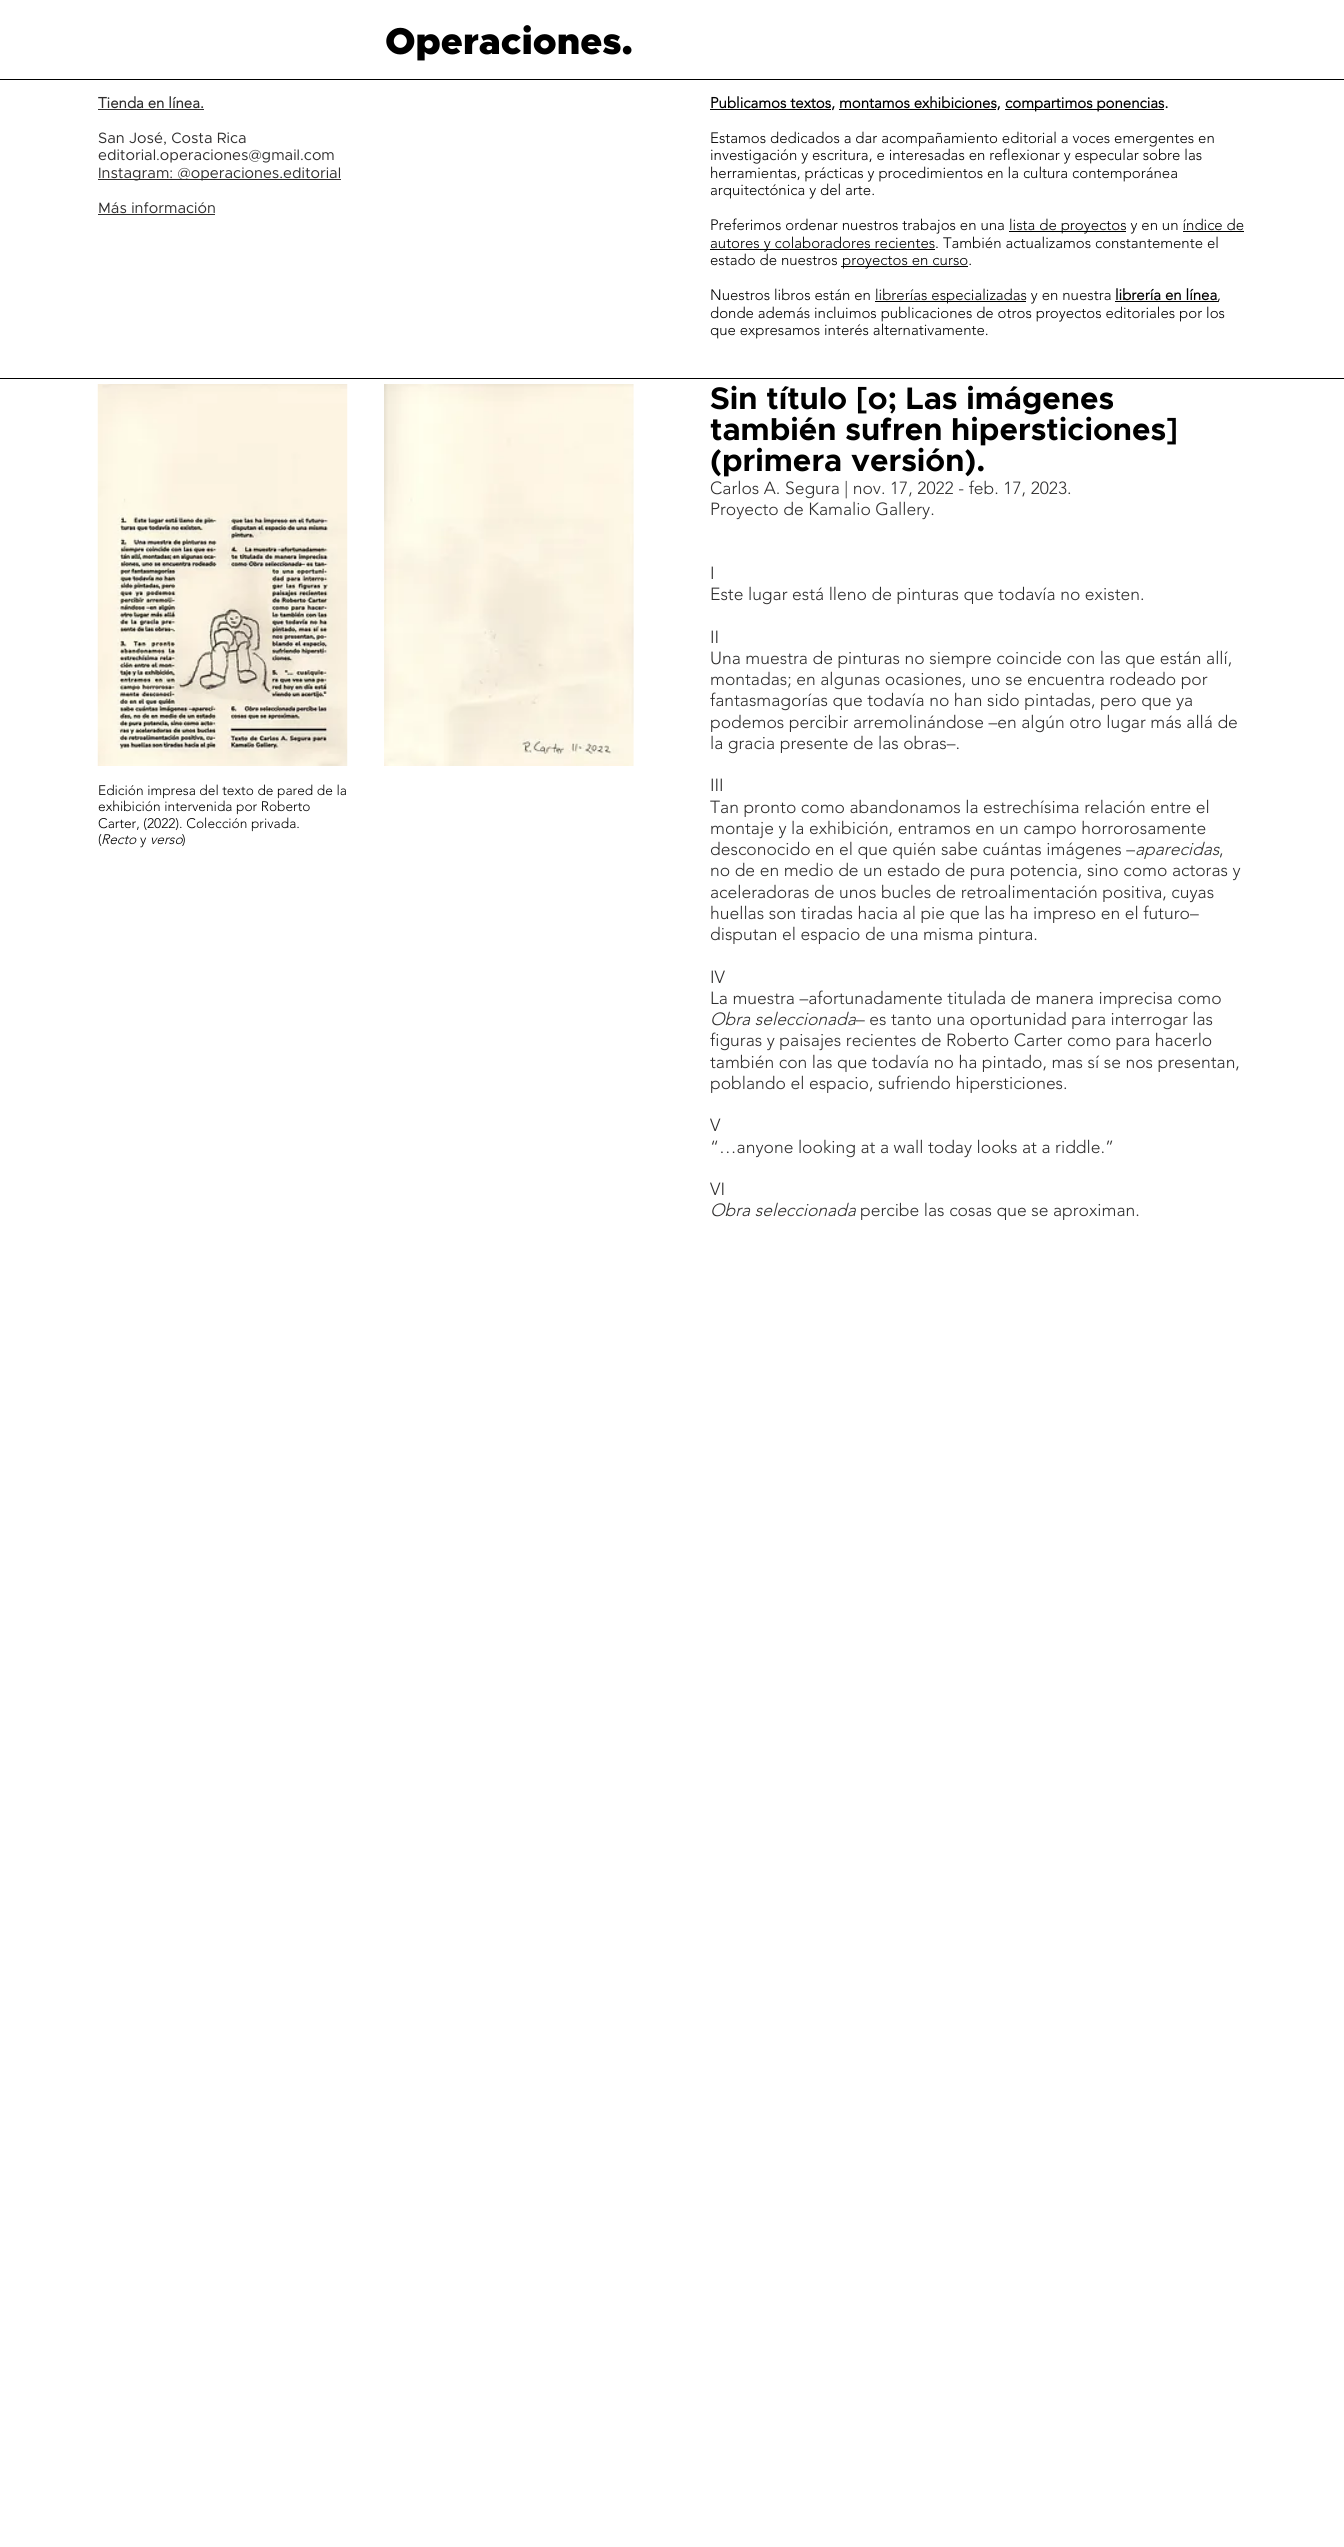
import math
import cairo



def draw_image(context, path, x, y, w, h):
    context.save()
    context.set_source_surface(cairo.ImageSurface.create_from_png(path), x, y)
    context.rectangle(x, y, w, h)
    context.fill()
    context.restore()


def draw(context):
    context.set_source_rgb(1, 1, 1)
    context.paint()
    context.set_source_rgb(0, 0, 0)
    context.rectangle(0, 79, 1344, 1)
    context.fill()
    context.set_source_rgb(47 / 255, 46 / 255, 46 / 255)
    context.rectangle(98, 109, 106, 1)
    context.fill()
    context.rectangle(98, 179, 243, 1)
    context.fill()
    context.rectangle(98, 214, 117, 1)
    context.fill()
    context.set_source_rgb(0, 0, 0)
    context.rectangle(710, 109, 121, 1)
    context.fill()
    context.rectangle(839, 109, 157, 1)
    context.fill()
    context.rectangle(1005, 109, 159, 1)
    context.fill()
    context.rectangle(1009, 231, 117, 1)
    context.fill()
    context.rectangle(1183, 231, 61, 1)
    context.fill()
    context.rectangle(710, 249, 225, 1)
    context.fill()
    context.rectangle(841, 266, 127, 1)
    context.fill()
    context.rectangle(875, 301, 151, 1)
    context.fill()
    context.rectangle(1115, 301, 103, 1)
    context.fill()
    context.rectangle(0, 378, 1344, 1)
    context.fill()
    draw_image(context, "images/1.png", 97, 384, 251, 382)
    draw_image(context, "images/2.png", 384, 384, 250, 382)
    context.select_font_face("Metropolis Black")
    context.set_font_size(37.5)
    context.move_to(385, 54)
    context.show_text("Operaciones.")
    context.select_font_face("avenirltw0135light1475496", cairo.FontSlant.NORMAL, cairo.FontWeight.BOLD)
    context.set_font_size(15)
    context.set_source_rgb(47 / 255, 46 / 255, 46 / 255)
    context.move_to(98, 108)
    context.show_text("Tienda en línea.")
    context.select_font_face("Metropolis")
    context.move_to(98, 143)
    context.show_text("San José, Costa Rica")
    context.move_to(98, 160)
    context.show_text("editorial.operaciones@gmail.com")
    context.move_to(98, 178)
    context.show_text("Instagram: @operaciones.editorial")
    context.move_to(98, 213)
    context.show_text("Más información")
    context.select_font_face("avenirltw0135light1475496", cairo.FontSlant.NORMAL, cairo.FontWeight.BOLD)
    context.set_source_rgb(0, 0, 0)
    context.move_to(710, 108)
    context.show_text("Publicamos textos, montamos exhibiciones,")
    context.move_to(1005, 108)
    context.show_text("compartimos ponencias.")
    context.select_font_face("avenirltw0135light1475496 Light")
    context.move_to(710, 143)
    context.show_text("Estamos dedicados a dar acompañamiento editorial a voces emergentes en")
    context.move_to(710, 160)
    context.show_text("investigación y escritura, e interesadas en reflexionar y especular sobre las")
    context.move_to(710, 178)
    context.show_text("herramientas, prácticas y procedimientos en la cultura contemporánea")
    context.move_to(710, 195)
    context.show_text("arquitectónica y del arte.")
    context.move_to(710, 230)
    context.show_text("Preferimos ordenar nuestros trabajos en una")
    context.move_to(1009, 230)
    context.show_text("lista de proyectos y en un índice de")
    context.move_to(710, 248)
    context.show_text("autores y colaboradores recientes. También actualizamos constantemente el")
    context.move_to(710, 265)
    context.show_text("estado de nuestros")
    context.move_to(842, 265)
    context.show_text("proyectos en curso.")
    context.move_to(710, 300)
    context.show_text("Nuestros libros están en")
    context.move_to(875, 300)
    context.show_text("librerías especializadas y en nuestra")
    context.select_font_face("avenirltw0135light1475496", cairo.FontSlant.NORMAL, cairo.FontWeight.BOLD)
    context.move_to(1115, 300)
    context.show_text("librería en línea")
    context.select_font_face("avenirltw0135light1475496 Light")
    context.move_to(1217, 300)
    context.show_text(",")
    context.move_to(710, 318)
    context.show_text("donde además incluimos publicaciones de otros proyectos editoriales por los")
    context.move_to(710, 335)
    context.show_text("que expresamos interés alternativamente.")
    context.select_font_face("Metropolis", cairo.FontSlant.NORMAL, cairo.FontWeight.BOLD)
    context.set_font_size(31.25)
    context.move_to(710, 409)
    context.show_text("Sin título [o; Las imágenes")
    context.move_to(710, 440)
    context.show_text("también sufren hipersticiones]")
    context.move_to(710, 471)
    context.show_text("(primera versión).")
    context.select_font_face("avenirltw0135light1475496 Light")
    context.set_font_size(17.5)
    context.set_source_rgb(47 / 255, 46 / 255, 46 / 255)
    context.move_to(710, 494)
    context.show_text("Carlos A. Segura | nov. 17, 2022 - feb. 17, 2023.")
    context.move_to(710, 515)
    context.show_text("Proyecto de Kamalio Gallery.")
    context.move_to(710, 579)
    context.show_text("I")
    context.move_to(710, 600)
    context.show_text("Este lugar está lleno de pinturas que todavía no existen.")
    context.move_to(710, 643)
    context.show_text("II")
    context.move_to(710, 664)
    context.show_text("Una muestra de pinturas no siempre coincide con las que están allí,")
    context.move_to(710, 685)
    context.show_text("montadas; en algunas ocasiones, uno se encuentra rodeado por")
    context.move_to(710, 706)
    context.show_text("fantasmagorías que todavía no han sido pintadas, pero que ya")
    context.move_to(710, 728)
    context.show_text("podemos percibir arremolinándose –en algún otro lugar más allá de")
    context.move_to(710, 749)
    context.show_text("la gracia presente de las obras–.")
    context.move_to(710, 791)
    context.show_text("III")
    context.move_to(710, 813)
    context.show_text("Tan pronto como abandonamos la estrechísima relación entre el")
    context.move_to(710, 834)
    context.show_text("montaje y la exhibición, entramos en un campo horrorosamente")
    context.move_to(710, 855)
    context.show_text("desconocido en el que quién sabe cuántas imágenes –")
    context.select_font_face("avenirltw0135light1475496 Light", cairo.FontSlant.ITALIC)
    context.move_to(1135, 855)
    context.show_text("aparecidas")
    context.select_font_face("avenirltw0135light1475496 Light")
    context.move_to(1219, 855)
    context.show_text(",")
    context.move_to(710, 876)
    context.show_text("no de en medio de un estado de pura potencia, sino como actoras y")
    context.move_to(710, 898)
    context.show_text("aceleradoras de unos bucles de retroalimentación positiva, cuyas")
    context.move_to(710, 919)
    context.show_text("huellas son tiradas hacia al pie que las ha impreso en el futuro–")
    context.move_to(710, 940)
    context.show_text("disputan el espacio de una misma pintura.")
    context.move_to(710, 983)
    context.show_text("IV")
    context.move_to(710, 1004)
    context.show_text("La muestra –afortunadamente titulada de manera imprecisa como")
    context.select_font_face("avenirltw0135light1475496 Light", cairo.FontSlant.ITALIC)
    context.move_to(710, 1025)
    context.show_text("Obra seleccionada")
    context.select_font_face("avenirltw0135light1475496 Light")
    context.move_to(856, 1025)
    context.show_text("– es tanto una oportunidad para interrogar las")
    context.move_to(710, 1046)
    context.show_text("figuras y paisajes recientes de Roberto Carter como para hacerlo")
    context.move_to(710, 1068)
    context.show_text("también con las que todavía no ha pintado, mas sí se nos presentan,")
    context.move_to(710, 1089)
    context.show_text("poblando el espacio, sufriendo hipersticiones.")
    context.move_to(710, 1131)
    context.show_text("V")
    context.move_to(710, 1153)
    context.show_text("“…anyone looking at a wall today looks at a riddle.”")
    context.move_to(710, 1195)
    context.show_text("VI")
    context.select_font_face("avenirltw0135light1475496 Light", cairo.FontSlant.ITALIC)
    context.move_to(710, 1216)
    context.show_text("Obra seleccionada")
    context.select_font_face("avenirltw0135light1475496 Light")
    context.move_to(860, 1216)
    context.show_text("percibe las cosas que se aproximan.")
    context.set_font_size(13.75)
    context.set_source_rgb(0, 0, 0)
    context.move_to(98, 795)
    context.show_text("Edición impresa del texto de pared de la")
    context.move_to(98, 811)
    context.show_text("exhibición intervenida por Roberto")
    context.move_to(98, 828)
    context.show_text("Carter, (2022). Colección privada.")
    context.move_to(98, 844)
    context.show_text("(")
    context.select_font_face("avenirltw0135light1475496 Light", cairo.FontSlant.ITALIC)
    context.move_to(101, 844)
    context.show_text("Recto")
    context.select_font_face("avenirltw0135light1475496 Light")
    context.move_to(140, 844)
    context.show_text("y")
    context.select_font_face("avenirltw0135light1475496 Light", cairo.FontSlant.ITALIC)
    context.move_to(150, 844)
    context.show_text("verso")
    context.select_font_face("avenirltw0135light1475496 Light")
    context.move_to(182, 844)
    context.show_text(")")


surface = cairo.ImageSurface(cairo.Format.RGB24, 1344, 2547)
context = cairo.Context(surface)
options = cairo.FontOptions()
options.set_hint_metrics(cairo.HintMetrics.OFF)
options.set_hint_style(cairo.HintStyle.NONE)
context.set_font_options(options)
context.set_miter_limit(4)
draw(context)
surface.write_to_png("out.png")
